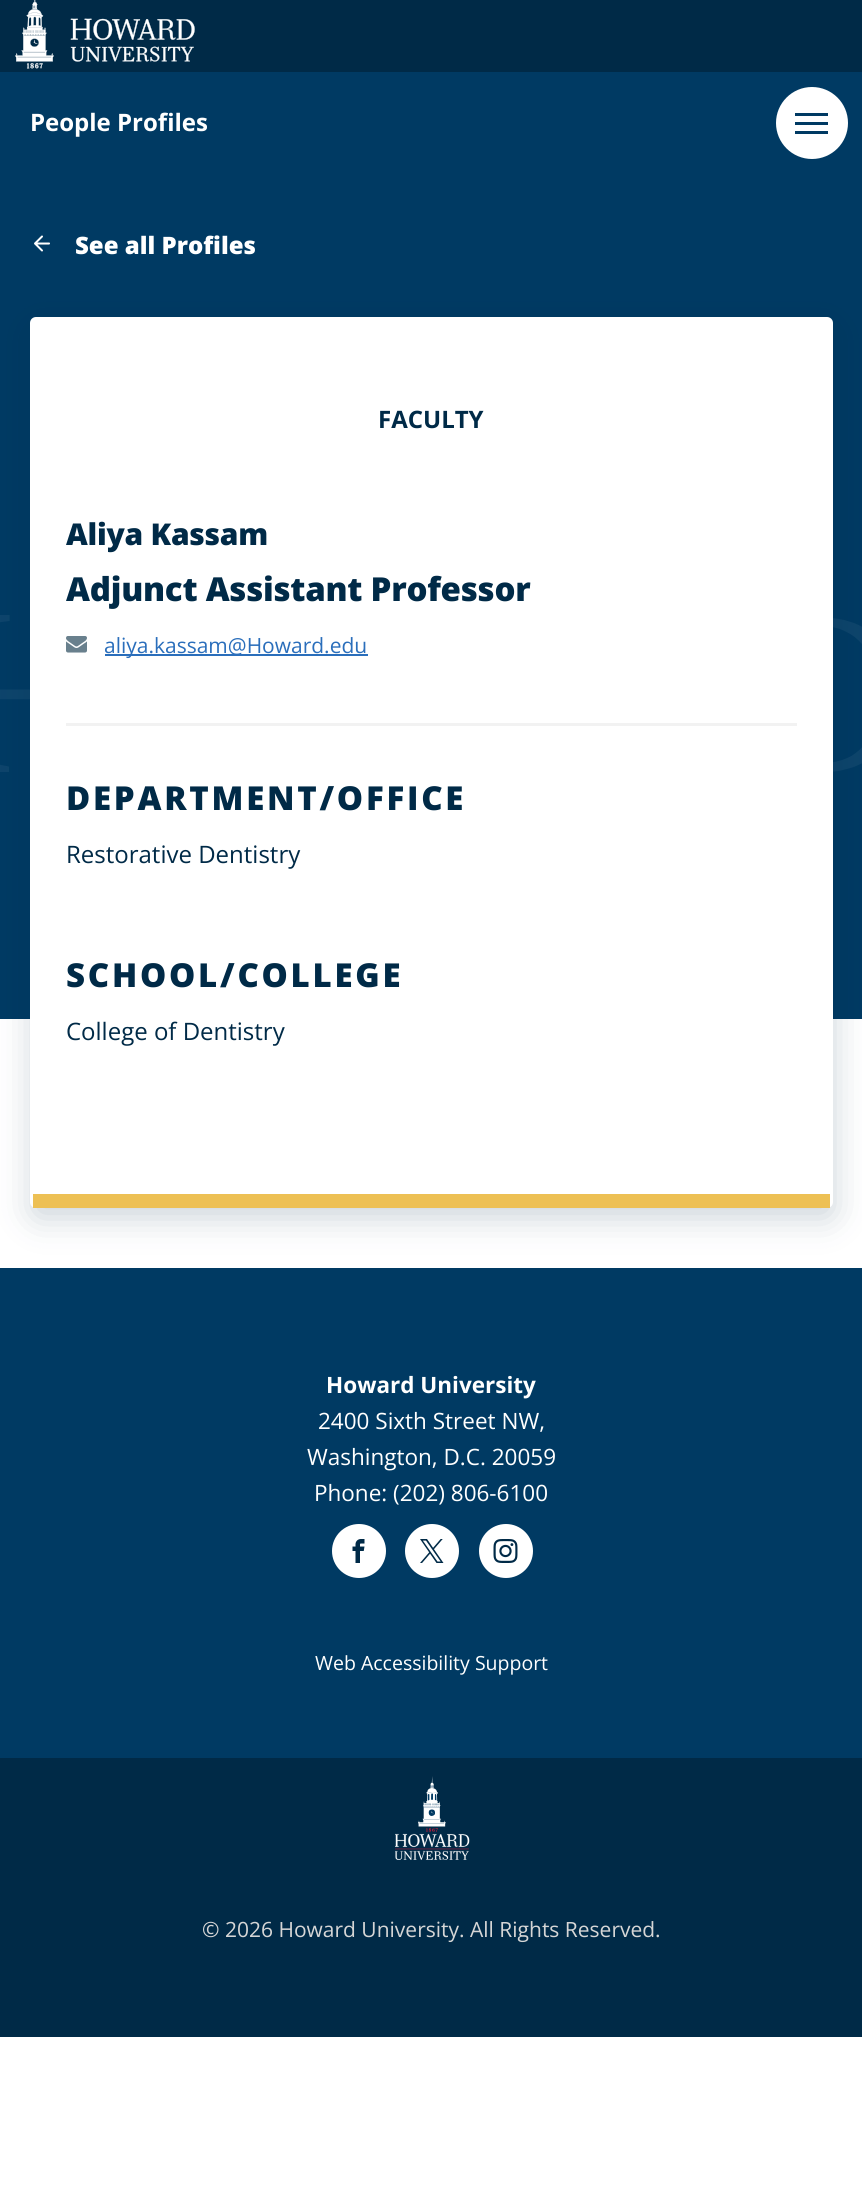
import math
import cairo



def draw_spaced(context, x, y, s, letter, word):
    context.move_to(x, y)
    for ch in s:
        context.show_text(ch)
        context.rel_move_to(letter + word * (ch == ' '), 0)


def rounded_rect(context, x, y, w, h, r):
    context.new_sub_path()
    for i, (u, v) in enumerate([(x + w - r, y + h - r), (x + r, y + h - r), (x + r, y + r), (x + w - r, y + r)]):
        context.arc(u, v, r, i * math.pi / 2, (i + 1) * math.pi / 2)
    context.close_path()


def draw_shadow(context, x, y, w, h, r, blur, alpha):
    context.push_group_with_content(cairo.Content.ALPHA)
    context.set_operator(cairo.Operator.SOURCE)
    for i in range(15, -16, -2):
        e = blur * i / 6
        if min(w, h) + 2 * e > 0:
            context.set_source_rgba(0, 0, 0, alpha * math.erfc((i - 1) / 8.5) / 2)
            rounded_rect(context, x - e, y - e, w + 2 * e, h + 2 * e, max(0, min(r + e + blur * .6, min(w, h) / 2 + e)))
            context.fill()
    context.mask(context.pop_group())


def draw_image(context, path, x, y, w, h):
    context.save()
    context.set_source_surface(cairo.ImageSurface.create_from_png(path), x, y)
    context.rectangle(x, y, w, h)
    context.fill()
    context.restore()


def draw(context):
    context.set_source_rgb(1, 1, 1)
    context.paint()
    context.set_source_rgb(0, 42 / 255, 71 / 255)
    context.rectangle(0, 0, 862, 72)
    context.fill()
    draw_image(context, "images/1.png", 15, 0, 180, 69)
    context.set_source_rgb(0, 58 / 255, 99 / 255)
    context.rectangle(0, 72, 862, 947)
    context.fill()
    draw_image(context, "images/2.png", 0, 615, 862, 157)
    context.set_source_rgb(1, 1, 1)
    context.arc(812, 123, 36, 0, 2 * math.pi)
    context.fill()
    context.set_source_rgb(0, 58 / 255, 99 / 255)
    context.rectangle(795, 113, 33, 3)
    context.fill()
    context.rectangle(795, 122, 33, 3)
    context.fill()
    context.rectangle(795, 131, 33, 3)
    context.fill()
    draw_image(context, "images/3.png", 34, 235, 16, 17)
    context.rectangle(0, 1268, 862, 490)
    context.fill()
    context.set_source_rgb(0, 42 / 255, 71 / 255)
    draw_shadow(context, 32, 327, 802, 891, 6, 17, 0.2)
    context.set_source_rgb(1, 1, 1)
    rounded_rect(context, 30, 317, 803, 891, 6)
    context.fill()
    context.set_source_rgb(237 / 255, 192 / 255, 84 / 255)
    context.rectangle(33, 1194, 797, 14)
    context.fill()
    draw_image(context, "images/4.png", 66, 636, 21, 17)
    context.set_source_rgb(42 / 255, 110 / 255, 187 / 255)
    context.rectangle(105, 654, 263, 2)
    context.fill()
    context.set_source_rgb(242 / 255, 242 / 255, 242 / 255)
    context.rectangle(66, 723, 731, 3)
    context.fill()
    context.set_source_rgb(1, 1, 1)
    context.arc(359, 1551, 27, 0, 2 * math.pi)
    context.fill()
    draw_image(context, "images/5.png", 352, 1539, 13, 24)
    context.arc(432, 1551, 27, 0, 2 * math.pi)
    context.fill()
    draw_image(context, "images/6.png", 420, 1539, 24, 24)
    context.arc(506, 1551, 27, 0, 2 * math.pi)
    context.fill()
    draw_image(context, "images/7.png", 493, 1539, 25, 24)
    context.set_source_rgb(0, 42 / 255, 71 / 255)
    context.rectangle(0, 1758, 862, 279)
    context.fill()
    draw_image(context, "images/8.png", 395, 1776, 75, 84)
    context.select_font_face("Open Sans", cairo.FontSlant.NORMAL, cairo.FontWeight.BOLD)
    context.set_font_size(24)
    context.set_source_rgb(1, 1, 1)
    context.move_to(30, 131)
    context.show_text("People Profiles")
    context.select_font_face("Open Sans ExtraBold")
    context.move_to(75, 254)
    context.show_text("See all Profiles")
    context.select_font_face("Open Sans", cairo.FontSlant.NORMAL, cairo.FontWeight.BOLD)
    context.set_source_rgb(0, 42 / 255, 71 / 255)
    context.move_to(378, 428)
    context.show_text("FACULTY")
    context.select_font_face("Open Sans ExtraBold")
    context.set_font_size(30)
    draw_spaced(context, 66, 545, "Aliya Kassam", -0.25, 0)
    context.set_font_size(33)
    draw_spaced(context, 66, 601, "Adjunct Assistant Professor", -0.25, 0)
    context.select_font_face("Open Sans")
    context.set_font_size(21)
    context.set_source_rgb(42 / 255, 110 / 255, 187 / 255)
    context.move_to(104, 653)
    context.show_text("aliya.kassam@Howard.edu")
    context.select_font_face("Open Sans ExtraBold")
    context.set_font_size(33)
    context.set_source_rgb(0, 42 / 255, 71 / 255)
    draw_spaced(context, 66, 810, "DEPARTMENT/OFFICE", 2.75, 0)
    context.select_font_face("Open Sans")
    context.set_font_size(24)
    context.move_to(66, 863)
    context.show_text("Restorative Dentistry")
    context.select_font_face("Open Sans ExtraBold")
    context.set_font_size(33)
    draw_spaced(context, 66, 987, "SCHOOL/COLLEGE", 2.75, 0)
    context.select_font_face("Open Sans")
    context.set_font_size(24)
    context.move_to(66, 1040)
    context.show_text("College of Dentistry")
    context.select_font_face("Open Sans", cairo.FontSlant.NORMAL, cairo.FontWeight.BOLD)
    context.set_font_size(22.5)
    context.set_source_rgb(1, 1, 1)
    context.move_to(326, 1393)
    context.show_text("Howard University")
    context.select_font_face("Open Sans")
    context.move_to(318, 1429)
    context.show_text("2400 Sixth Street NW,")
    context.move_to(307, 1465)
    context.show_text("Washington, D.C. 20059")
    context.move_to(314, 1501)
    context.show_text("Phone: (202) 806-6100")
    context.set_font_size(19.5)
    context.move_to(315, 1670)
    context.show_text("Web Accessibility Support")
    context.set_font_size(21)
    context.set_source_rgb(214 / 255, 214 / 255, 214 / 255)
    context.move_to(202, 1937)
    context.show_text("© 2026 Howard University. All Rights Reserved.")


surface = cairo.ImageSurface(cairo.Format.RGB24, 862, 2207)
context = cairo.Context(surface)
options = cairo.FontOptions()
options.set_hint_metrics(cairo.HintMetrics.OFF)
options.set_hint_style(cairo.HintStyle.NONE)
context.set_font_options(options)
context.set_miter_limit(4)
draw(context)
surface.write_to_png("out.png")
